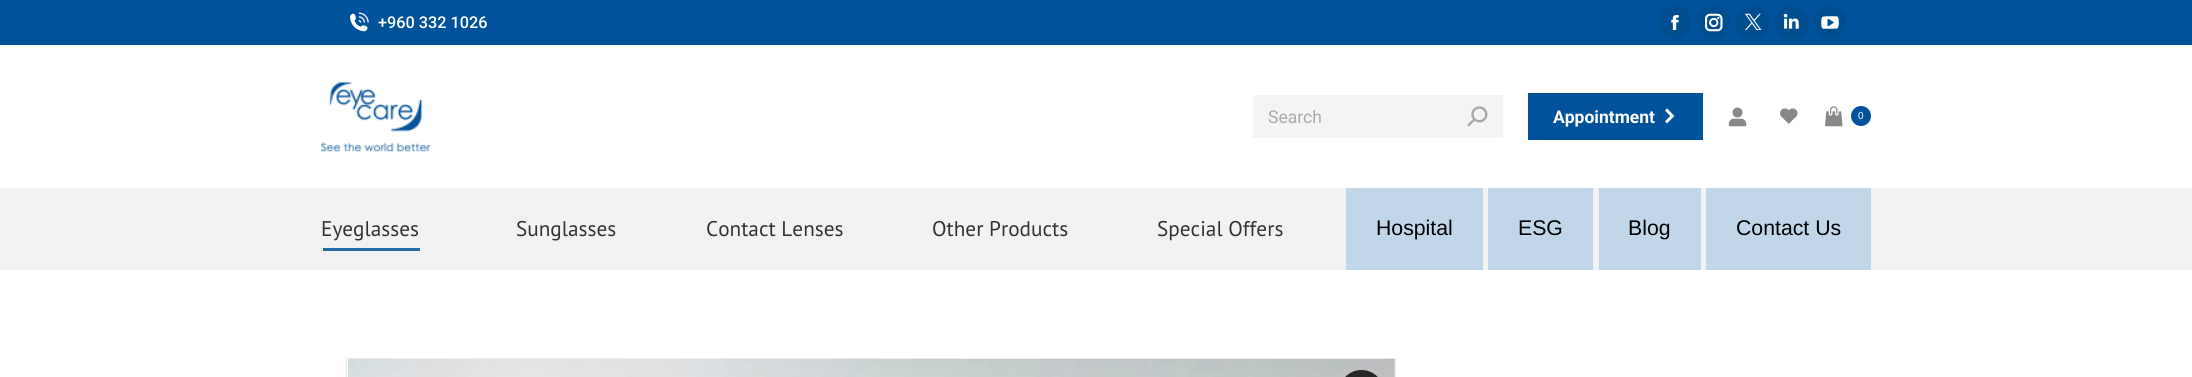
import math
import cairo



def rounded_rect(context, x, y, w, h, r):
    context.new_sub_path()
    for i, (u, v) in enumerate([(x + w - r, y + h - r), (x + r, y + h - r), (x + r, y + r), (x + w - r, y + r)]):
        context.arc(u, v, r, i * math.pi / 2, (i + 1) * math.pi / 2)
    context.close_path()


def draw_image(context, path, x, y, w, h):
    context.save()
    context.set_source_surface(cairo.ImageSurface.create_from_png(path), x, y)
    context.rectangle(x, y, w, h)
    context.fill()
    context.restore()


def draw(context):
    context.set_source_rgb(1, 1, 1)
    context.paint()
    context.set_source_rgb(0, 83 / 255, 155 / 255)
    context.rectangle(0, 0, 2192, 45)
    context.fill()
    draw_image(context, "images/1.png", 350, 12, 19, 20)
    context.set_source_rgb(0, 77 / 255, 144 / 255)
    rounded_rect(context, 1659, 6, 32, 33, 16)
    context.fill()
    draw_image(context, "images/2.png", 1671, 15, 8, 15)
    rounded_rect(context, 1698, 6, 32, 33, 16)
    context.fill()
    draw_image(context, "images/3.png", 1705, 13, 18, 19)
    context.arc(1752.5, 22.5, 16.5, 0, 2 * math.pi)
    context.fill()
    draw_image(context, "images/4.png", 1745, 13, 17, 17)
    context.arc(1791.5, 22.5, 16.5, 0, 2 * math.pi)
    context.fill()
    draw_image(context, "images/5.png", 1783, 13, 16, 16)
    rounded_rect(context, 1814, 6, 32, 33, 16)
    context.fill()
    draw_image(context, "images/6.png", 1821, 16, 18, 13)
    draw_image(context, "images/7.png", 321, 82, 109, 70)
    context.set_source_rgb(244 / 255, 244 / 255, 244 / 255)
    context.rectangle(1253, 95, 250, 43)
    context.fill()
    draw_image(context, "images/8.png", 1467, 106, 21, 21)
    context.set_source_rgb(0, 83 / 255, 155 / 255)
    context.rectangle(1528, 93, 175, 47)
    context.fill()
    draw_image(context, "images/9.png", 1665, 108, 10, 16)
    draw_image(context, "images/10.png", 1728, 107, 19, 20)
    draw_image(context, "images/11.png", 1780, 108, 18, 16)
    draw_image(context, "images/12.png", 1825, 106, 18, 21)
    context.arc(1861, 116, 10, 0, 2 * math.pi)
    context.fill()
    context.set_source_rgb(242 / 255, 242 / 255, 242 / 255)
    context.rectangle(0, 188, 2192, 82)
    context.fill()
    context.set_source_rgb(36 / 255, 107 / 255, 168 / 255)
    context.rectangle(323, 248, 97, 3)
    context.fill()
    context.set_source_rgb(193 / 255, 214 / 255, 233 / 255)
    context.rectangle(1346, 188, 137, 82)
    context.fill()
    context.rectangle(1488, 188, 105, 82)
    context.fill()
    context.rectangle(1599, 188, 102, 82)
    context.fill()
    context.rectangle(1706, 188, 165, 82)
    context.fill()
    context.rectangle(346.5, 358.5, 1049, 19)
    context.set_source_rgb(235 / 255, 235 / 255, 235 / 255)
    context.set_line_width(1)
    context.stroke()
    draw_image(context, "images/13.png", 348, 359, 1047, 18)
    context.set_source_rgba(0, 0, 0, 0.8)
    rounded_rect(context, 1339, 370, 45, 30, 22.5)
    context.fill()
    context.select_font_face("Roboto Medium")
    context.set_font_size(16.25)
    context.set_source_rgb(1, 1, 1)
    context.move_to(378, 28)
    context.show_text("+960 332 1026")
    context.select_font_face("Roboto")
    context.set_font_size(17.5)
    context.set_source_rgb(170 / 255, 170 / 255, 170 / 255)
    context.move_to(1268, 123)
    context.show_text("Search")
    context.select_font_face("Roboto", cairo.FontSlant.NORMAL, cairo.FontWeight.BOLD)
    context.set_source_rgb(1, 1, 1)
    context.move_to(1553, 123)
    context.show_text("Appointment")
    context.select_font_face("Liberation Sans")
    context.set_font_size(10)
    context.move_to(1858, 119)
    context.show_text("0")
    context.select_font_face("PT Sans")
    context.set_font_size(21.25)
    context.set_source_rgb(51 / 255, 51 / 255, 51 / 255)
    context.move_to(321, 236)
    context.show_text("Eyeglasses")
    context.move_to(516, 236)
    context.show_text("Sunglasses")
    context.move_to(706, 236)
    context.show_text("Contact Lenses")
    context.move_to(932, 236)
    context.show_text("Other Products")
    context.move_to(1157, 236)
    context.show_text("Special Offers")
    context.select_font_face("Liberation Sans")
    context.set_source_rgb(0, 0, 0)
    context.move_to(1376, 235)
    context.show_text("Hospital")
    context.move_to(1518, 235)
    context.show_text("ESG")
    context.move_to(1628, 235)
    context.show_text("Blog")
    context.move_to(1736, 235)
    context.show_text("Contact Us")


surface = cairo.ImageSurface(cairo.Format.RGB24, 2192, 377)
context = cairo.Context(surface)
options = cairo.FontOptions()
options.set_hint_metrics(cairo.HintMetrics.OFF)
options.set_hint_style(cairo.HintStyle.NONE)
context.set_font_options(options)
context.set_miter_limit(4)
draw(context)
surface.write_to_png("out.png")
